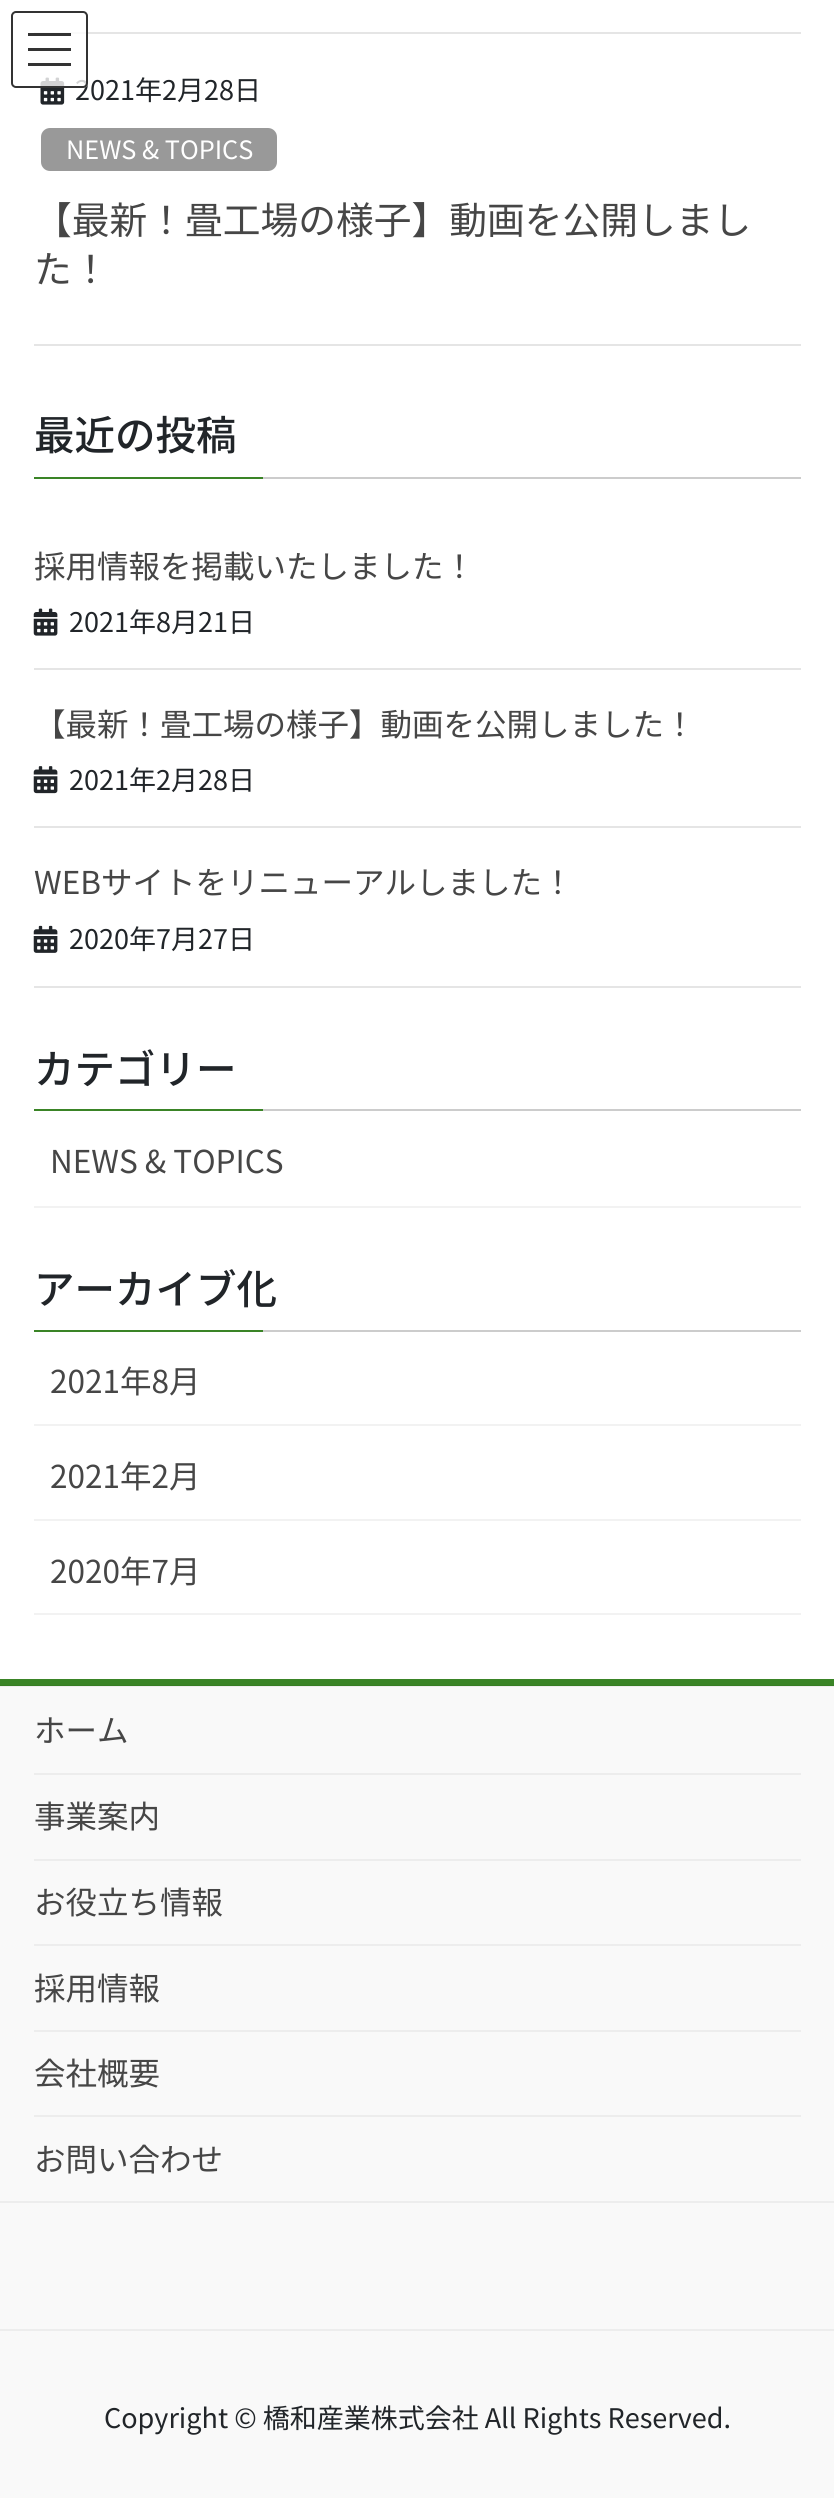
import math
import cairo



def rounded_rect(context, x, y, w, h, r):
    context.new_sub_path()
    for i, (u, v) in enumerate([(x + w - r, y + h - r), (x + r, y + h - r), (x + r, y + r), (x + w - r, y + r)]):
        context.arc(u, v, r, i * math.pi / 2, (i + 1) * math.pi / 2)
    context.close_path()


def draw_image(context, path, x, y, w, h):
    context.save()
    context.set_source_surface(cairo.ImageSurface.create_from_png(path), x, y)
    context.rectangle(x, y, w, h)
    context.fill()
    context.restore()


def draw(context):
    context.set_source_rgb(1, 1, 1)
    context.paint()
    context.set_source_rgb(229 / 255, 229 / 255, 229 / 255)
    context.rectangle(34, 32, 767, 2)
    context.fill()
    context.rectangle(34, 344, 767, 2)
    context.fill()
    draw_image(context, "images/1.png", 40, 77, 25, 28)
    context.set_source_rgb(153 / 255, 153 / 255, 153 / 255)
    rounded_rect(context, 41, 128, 236, 43, 9)
    context.fill()
    context.set_source_rgb(204 / 255, 204 / 255, 204 / 255)
    context.rectangle(263, 477, 538, 2)
    context.fill()
    context.set_source_rgb(58 / 255, 132 / 255, 38 / 255)
    context.rectangle(34, 477, 229, 2)
    context.fill()
    context.set_source_rgb(229 / 255, 229 / 255, 229 / 255)
    context.rectangle(34, 668, 767, 2)
    context.fill()
    draw_image(context, "images/2.png", 33, 608, 25, 28)
    context.rectangle(34, 826, 767, 2)
    context.fill()
    draw_image(context, "images/3.png", 33, 766, 25, 28)
    context.rectangle(34, 986, 767, 2)
    context.fill()
    draw_image(context, "images/4.png", 33, 925, 25, 28)
    context.set_source_rgb(204 / 255, 204 / 255, 204 / 255)
    context.rectangle(263, 1109, 538, 2)
    context.fill()
    context.set_source_rgb(58 / 255, 132 / 255, 38 / 255)
    context.rectangle(34, 1109, 229, 2)
    context.fill()
    context.set_source_rgb(242 / 255, 242 / 255, 242 / 255)
    context.rectangle(34, 1206, 767, 2)
    context.fill()
    context.set_source_rgb(204 / 255, 204 / 255, 204 / 255)
    context.rectangle(263, 1330, 538, 2)
    context.fill()
    context.set_source_rgb(58 / 255, 132 / 255, 38 / 255)
    context.rectangle(34, 1330, 229, 2)
    context.fill()
    context.set_source_rgb(242 / 255, 242 / 255, 242 / 255)
    context.rectangle(34, 1424, 767, 2)
    context.fill()
    context.rectangle(34, 1519, 767, 2)
    context.fill()
    context.rectangle(34, 1613, 767, 2)
    context.fill()
    context.set_source_rgb(249 / 255, 249 / 255, 249 / 255)
    context.rectangle(0, 1687, 834, 811)
    context.fill()
    context.set_source_rgb(237 / 255, 237 / 255, 237 / 255)
    context.rectangle(0, 1686, 834, 1)
    context.fill()
    context.set_source_rgb(58 / 255, 132 / 255, 38 / 255)
    context.rectangle(0, 1679, 834, 6)
    context.fill()
    context.set_source_rgb(55 / 255, 125 / 255, 36 / 255)
    context.rectangle(0, 1685, 834, 1)
    context.fill()
    context.set_source_rgb(237 / 255, 237 / 255, 237 / 255)
    context.rectangle(0, 2201, 834, 2)
    context.fill()
    context.rectangle(34, 1773, 767, 2)
    context.fill()
    context.rectangle(34, 1859, 767, 2)
    context.fill()
    context.rectangle(34, 1944, 767, 2)
    context.fill()
    context.rectangle(34, 2030, 767, 2)
    context.fill()
    context.rectangle(34, 2115, 767, 2)
    context.fill()
    context.rectangle(0, 2329, 834, 2)
    context.fill()
    context.select_font_face("Noto Sans JP")
    context.set_font_size(27)
    context.set_source_rgb(33 / 255, 37 / 255, 41 / 255)
    context.move_to(75, 100)
    context.show_text("2021年2月28日")
    context.set_source_rgba(1, 1, 1, 0.8)
    rounded_rect(context, 11, 11, 77, 77, 5)
    context.fill()
    context.set_source_rgb(51 / 255, 51 / 255, 51 / 255)
    context.rectangle(28, 63, 43, 3)
    context.fill()
    context.rectangle(28, 48, 43, 3)
    context.fill()
    context.set_source_rgba(0, 0, 0, 0.8)
    context.rectangle(28, 33, 43, 3)
    context.fill()
    rounded_rect(context, 12, 12, 75, 75, 4)
    context.set_source_rgb(51 / 255, 51 / 255, 51 / 255)
    context.stroke()
    context.set_font_size(25.25)
    context.set_source_rgb(1, 1, 1)
    context.move_to(66, 159)
    context.show_text("NEWS & TOPICS")
    context.set_font_size(37.75)
    context.set_source_rgb(70 / 255, 70 / 255, 70 / 255)
    context.move_to(34, 234)
    context.show_text("【最新！畳工場の様子】動画を公開しまし")
    context.move_to(34, 283)
    context.show_text("た！")
    context.select_font_face("Noto Sans JP Medium")
    context.set_font_size(40.5)
    context.set_source_rgb(33 / 255, 37 / 255, 41 / 255)
    context.move_to(34, 450)
    context.show_text("最近の投稿")
    context.select_font_face("Noto Sans JP")
    context.set_font_size(31.5)
    context.set_source_rgb(70 / 255, 70 / 255, 70 / 255)
    context.move_to(34, 578)
    context.show_text("採用情報を掲載いたしました！")
    context.set_font_size(27)
    context.set_source_rgb(33 / 255, 37 / 255, 41 / 255)
    context.move_to(69, 632)
    context.show_text("2021年8月21日")
    context.set_font_size(31.5)
    context.set_source_rgb(70 / 255, 70 / 255, 70 / 255)
    context.move_to(34, 736)
    context.show_text("【最新！畳工場の様子】動画を公開しました！")
    context.set_font_size(27)
    context.set_source_rgb(33 / 255, 37 / 255, 41 / 255)
    context.move_to(69, 790)
    context.show_text("2021年2月28日")
    context.set_font_size(31.5)
    context.set_source_rgb(70 / 255, 70 / 255, 70 / 255)
    context.move_to(34, 894)
    context.show_text("WEBサイトをリニューアルしました！")
    context.set_font_size(27)
    context.set_source_rgb(33 / 255, 37 / 255, 41 / 255)
    context.move_to(69, 949)
    context.show_text("2020年7月27日")
    context.select_font_face("Noto Sans JP Medium")
    context.set_font_size(40.5)
    context.move_to(34, 1084)
    context.show_text("カテゴリー")
    context.select_font_face("Noto Sans JP")
    context.set_font_size(31.5)
    context.set_source_rgb(70 / 255, 70 / 255, 70 / 255)
    context.move_to(50, 1173)
    context.show_text("NEWS & TOPICS")
    context.select_font_face("Noto Sans JP Medium")
    context.set_font_size(40.5)
    context.set_source_rgb(33 / 255, 37 / 255, 41 / 255)
    context.move_to(34, 1304)
    context.show_text("アーカイブ化")
    context.select_font_face("Noto Sans JP")
    context.set_font_size(31.5)
    context.set_source_rgb(70 / 255, 70 / 255, 70 / 255)
    context.move_to(50, 1393)
    context.show_text("2021年8月")
    context.move_to(50, 1488)
    context.show_text("2021年2月")
    context.move_to(50, 1583)
    context.show_text("2020年7月")
    context.move_to(34, 1742)
    context.show_text("ホーム")
    context.move_to(34, 1828)
    context.show_text("事業案内")
    context.move_to(34, 1914)
    context.show_text("お役立ち情報")
    context.move_to(34, 2000)
    context.show_text("採用情報")
    context.move_to(34, 2085)
    context.show_text("会社概要")
    context.move_to(34, 2171)
    context.show_text("お問い合わせ")
    context.set_font_size(27)
    context.set_source_rgb(33 / 255, 37 / 255, 41 / 255)
    context.move_to(104, 2428)
    context.show_text("Copyright © 橋和産業株式会社 All Rights Reserved.")


surface = cairo.ImageSurface(cairo.Format.RGB24, 834, 2498)
context = cairo.Context(surface)
options = cairo.FontOptions()
options.set_hint_metrics(cairo.HintMetrics.OFF)
options.set_hint_style(cairo.HintStyle.NONE)
context.set_font_options(options)
context.set_miter_limit(4)
draw(context)
surface.write_to_png("out.png")
